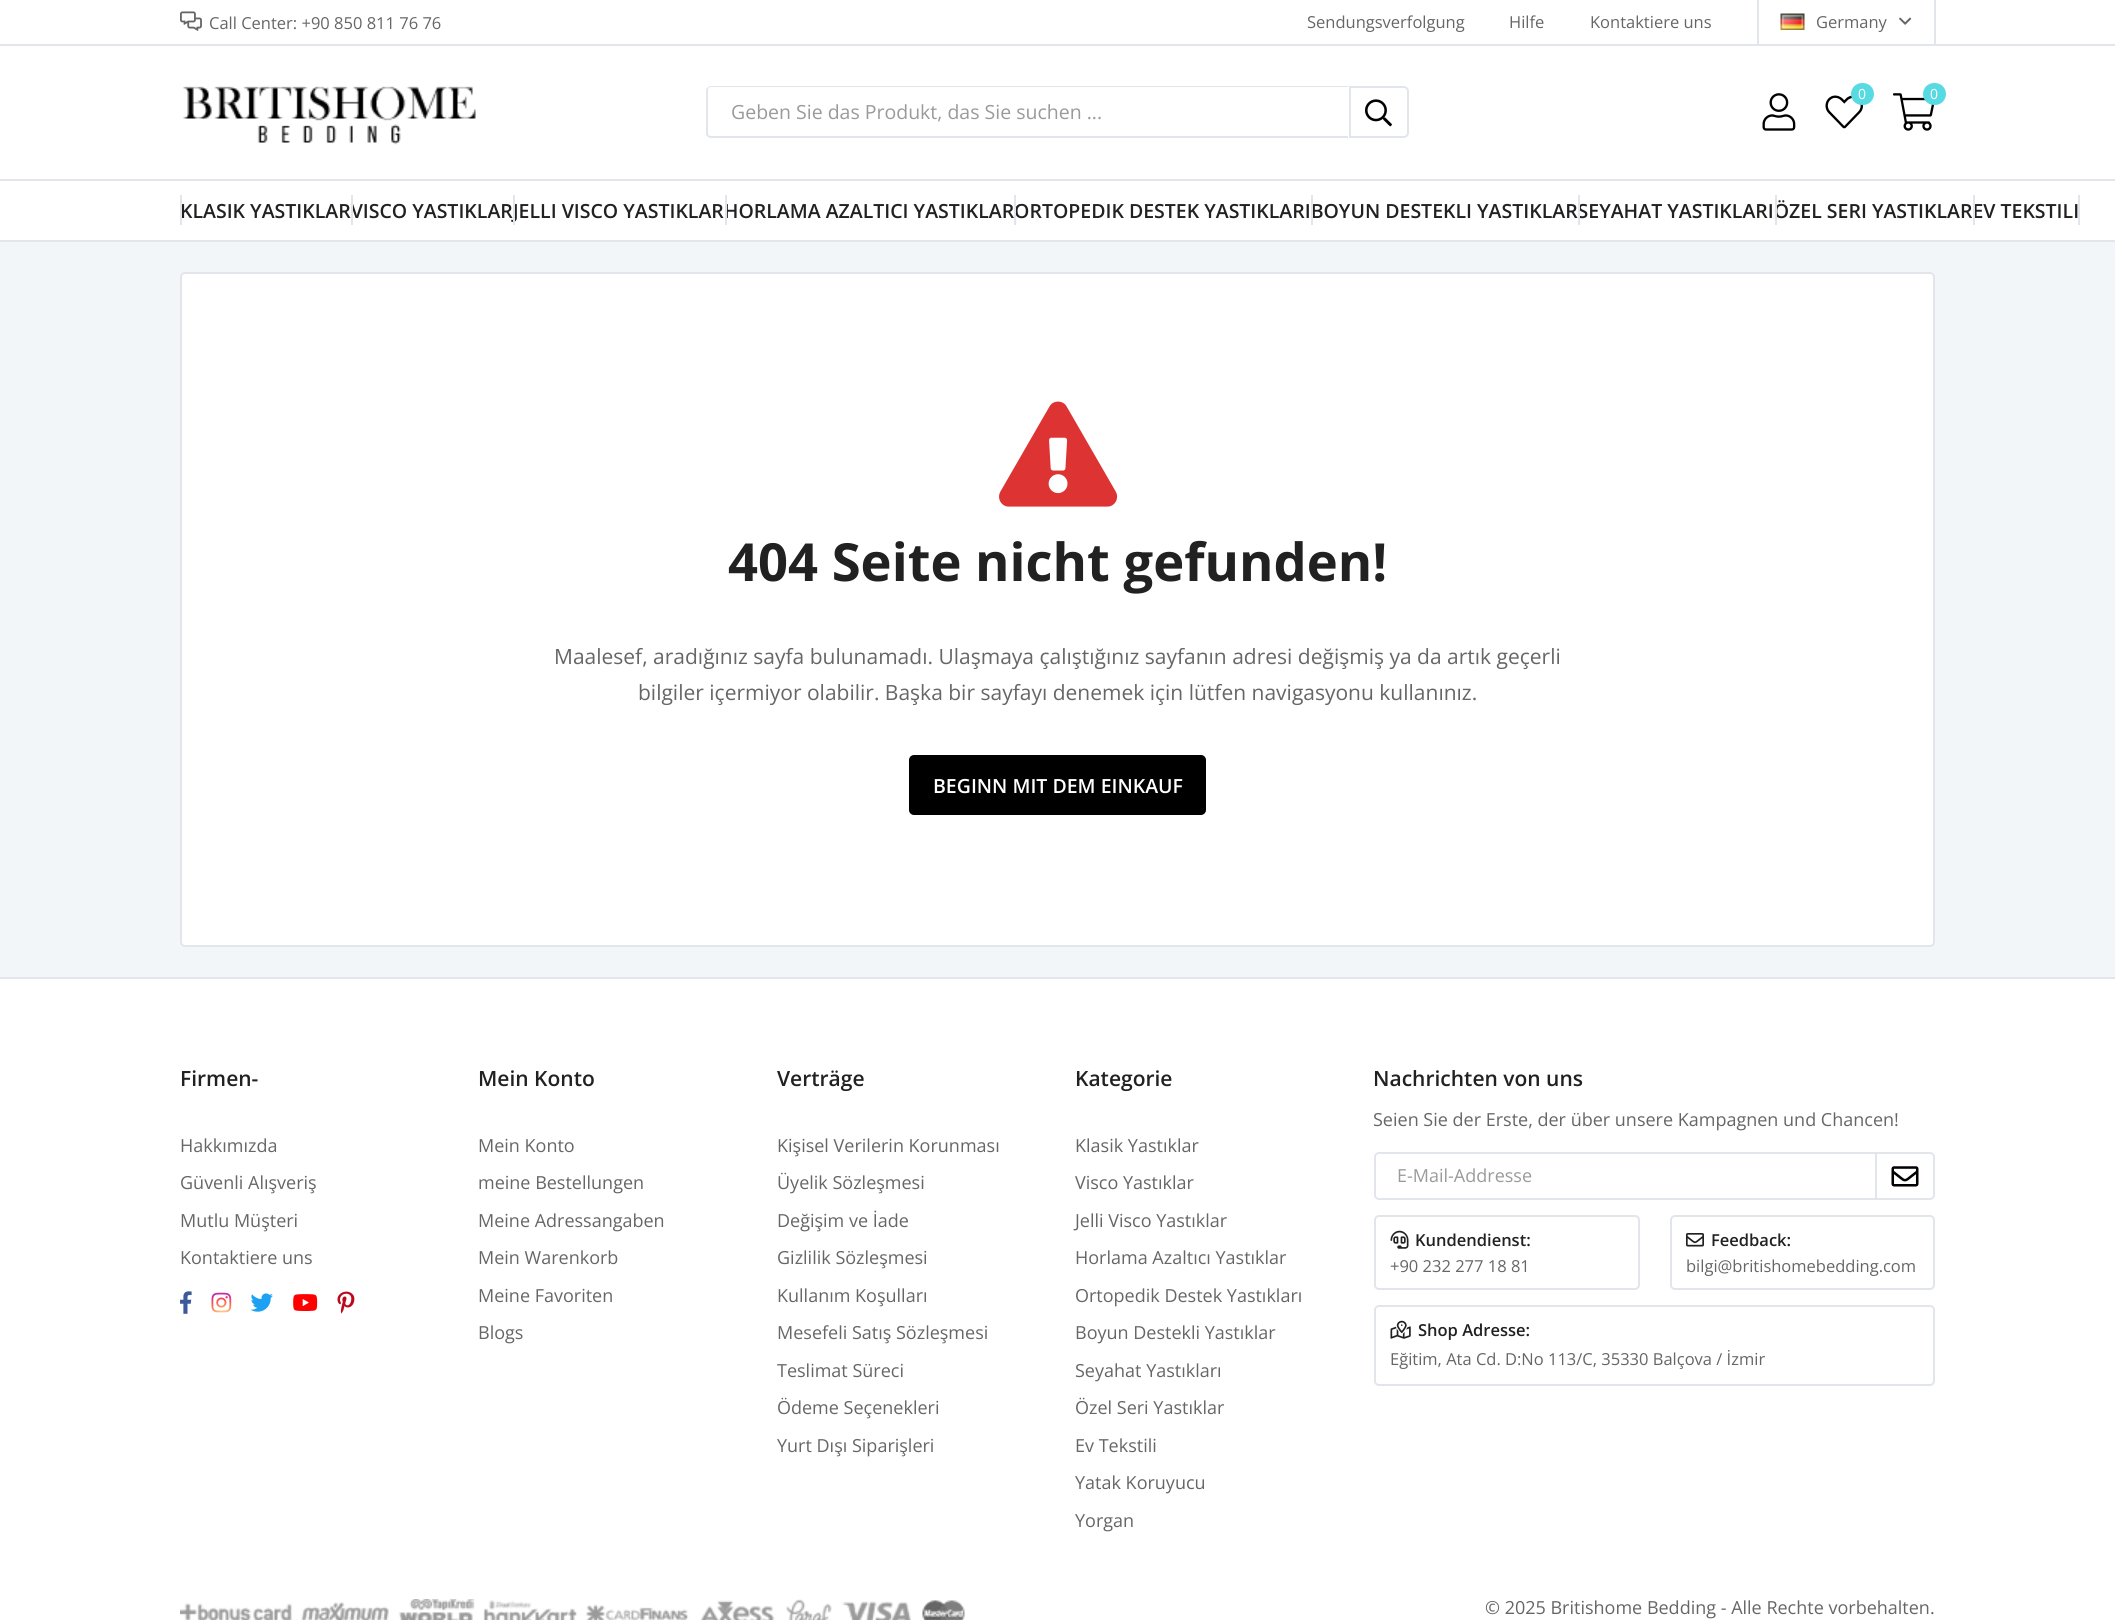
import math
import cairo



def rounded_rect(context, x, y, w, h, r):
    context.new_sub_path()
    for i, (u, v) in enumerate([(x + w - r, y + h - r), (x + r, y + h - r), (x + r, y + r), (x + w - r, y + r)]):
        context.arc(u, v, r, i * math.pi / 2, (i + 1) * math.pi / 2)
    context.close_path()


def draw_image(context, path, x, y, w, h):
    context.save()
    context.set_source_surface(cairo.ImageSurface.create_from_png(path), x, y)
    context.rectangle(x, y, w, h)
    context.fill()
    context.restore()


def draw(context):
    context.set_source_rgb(243 / 255, 246 / 255, 249 / 255)
    context.paint()
    context.set_source_rgb(1, 1, 1)
    context.rectangle(0, 0, 2115, 240)
    context.fill()
    context.set_source_rgb(226 / 255, 230 / 255, 235 / 255)
    context.rectangle(0, 44, 2115, 2)
    context.fill()
    draw_image(context, "images/1.png", 180, 11, 22, 20)
    context.rectangle(1934, 0, 2, 45)
    context.fill()
    context.rectangle(1757, 0, 2, 45)
    context.fill()
    draw_image(context, "images/2.png", 1780, 13, 25, 17)
    draw_image(context, "images/3.png", 1899, 17, 13, 8)
    context.rectangle(0, 179, 2115, 2)
    context.fill()
    draw_image(context, "images/4.png", 183, 86, 293, 59)
    draw_image(context, "images/5.png", 1762, 93, 34, 38)
    draw_image(context, "images/6.png", 1825, 95, 38, 34)
    context.set_source_rgb(87 / 255, 218 / 255, 226 / 255)
    rounded_rect(context, 1851, 83, 23, 22, 11)
    context.fill()
    draw_image(context, "images/7.png", 1893, 93, 41, 38)
    rounded_rect(context, 1923, 83, 23, 22, 11)
    context.fill()
    context.set_source_rgb(226 / 255, 230 / 255, 235 / 255)
    context.set_fill_rule(cairo.FillRule.EVEN_ODD)
    context.new_path()
    context.move_to(711, 86)
    context.line_to(1348, 86)
    context.line_to(1348, 138)
    context.line_to(711, 138)
    context.curve_to(709, 138, 706, 136, 706, 134)
    context.line_to(706, 90)
    context.curve_to(706, 88, 709, 86, 711, 86)
    context.close_path()
    context.move_to(711, 87)
    context.line_to(1348, 87)
    context.line_to(1348, 136)
    context.line_to(711, 136)
    context.curve_to(709, 136, 708, 135, 708, 134)
    context.line_to(708, 90)
    context.curve_to(708, 88, 709, 87, 711, 87)
    context.close_path()
    context.fill()
    context.new_path()
    context.move_to(1350, 87)
    context.line_to(1404, 87)
    context.curve_to(1406, 87, 1408, 89, 1408, 91)
    context.line_to(1408, 133)
    context.curve_to(1408, 135, 1406, 137, 1404, 137)
    context.line_to(1350, 137)
    context.close_path()
    context.stroke()
    draw_image(context, "images/8.png", 1365, 99, 27, 28)
    context.rectangle(0, 240, 2115, 2)
    context.fill()
    context.rectangle(2078, 195, 2, 30)
    context.fill()
    context.set_source_rgb(1, 1, 1)
    rounded_rect(context, 181, 273, 1753, 673, 4)
    context.fill_preserve()
    context.set_source_rgb(226 / 255, 230 / 255, 235 / 255)
    context.stroke()
    draw_image(context, "images/9.png", 999, 401, 119, 106)
    context.set_source_rgb(0, 0, 0)
    rounded_rect(context, 910, 756, 295, 58, 4)
    context.fill_preserve()
    context.stroke()
    context.set_source_rgb(1, 1, 1)
    context.rectangle(0, 979, 2115, 641)
    context.fill()
    context.set_source_rgb(226 / 255, 230 / 255, 235 / 255)
    context.rectangle(0, 977, 2115, 2)
    context.fill()
    draw_image(context, "images/10.png", 180, 1291, 12, 23)
    draw_image(context, "images/11.png", 211, 1292, 21, 21)
    draw_image(context, "images/12.png", 250, 1293, 23, 19)
    draw_image(context, "images/13.png", 293, 1294, 25, 17)
    draw_image(context, "images/14.png", 337, 1291, 18, 23)
    rounded_rect(context, 1375, 1153, 559, 46, 4)
    context.stroke()
    context.rectangle(1875, 1154, 2, 45)
    context.fill()
    draw_image(context, "images/15.png", 1891, 1166, 28, 21)
    rounded_rect(context, 1375, 1216, 264, 73, 4)
    context.stroke()
    draw_image(context, "images/16.png", 1390, 1230, 19, 19)
    rounded_rect(context, 1671, 1216, 263, 73, 4)
    context.stroke()
    draw_image(context, "images/17.png", 1686, 1233, 18, 14)
    rounded_rect(context, 1375, 1306, 559, 79, 4)
    context.stroke()
    draw_image(context, "images/18.png", 1390, 1320, 21, 19)
    draw_image(context, "images/19.png", 180, 1599, 785, 21)
    context.select_font_face("Open Sans")
    context.set_font_size(16.5)
    context.set_source_rgb(102 / 255, 102 / 255, 102 / 255)
    context.move_to(209, 29)
    context.show_text("Call Center: +90 850 811 76 76")
    context.move_to(1307, 28)
    context.show_text("Sendungsverfolgung")
    context.move_to(1509, 28)
    context.show_text("Hilfe")
    context.move_to(1590, 28)
    context.show_text("Kontaktiere uns")
    context.move_to(1816, 28)
    context.show_text("Germany")
    context.set_font_size(14)
    context.set_source_rgb(1, 1, 1)
    context.move_to(1858, 99)
    context.show_text("0")
    context.move_to(1930, 99)
    context.show_text("0")
    context.set_font_size(19.5)
    context.set_source_rgb(154 / 255, 154 / 255, 154 / 255)
    context.move_to(731, 119)
    context.show_text("Geben Sie das Produkt, das Sie suchen ...")
    context.select_font_face("Open Sans SemiBold")
    context.set_source_rgb(33 / 255, 33 / 255, 33 / 255)
    context.move_to(180, 218)
    context.show_text("KLASIK YASTIKLARVISCO YASTIKLARJELLI VISCO YASTIKLARHORLAMA AZALTICI YASTIKLARORTOPEDIK DESTEK YASTIKLARIBOYUN DESTEKLI YASTIKLARSEYAHAT YASTIKLARIÖZEL SERI YASTIKLAREV TEKSTILI")
    context.set_source_rgb(226 / 255, 230 / 255, 235 / 255)
    context.rectangle(1973, 195, 2, 30)
    context.fill()
    context.rectangle(1775, 195, 2, 30)
    context.fill()
    context.rectangle(1578, 195, 2, 30)
    context.fill()
    context.rectangle(1311, 195, 2, 30)
    context.fill()
    context.rectangle(1014, 195, 2, 30)
    context.fill()
    context.rectangle(725, 195, 2, 30)
    context.fill()
    context.rectangle(513, 195, 2, 30)
    context.fill()
    context.rectangle(351, 195, 2, 30)
    context.fill()
    context.rectangle(180, 195, 2, 30)
    context.fill()
    context.select_font_face("Open Sans", cairo.FontSlant.NORMAL, cairo.FontWeight.BOLD)
    context.set_font_size(52.5)
    context.set_source_rgb(33 / 255, 33 / 255, 33 / 255)
    context.move_to(728, 581)
    context.show_text("404 Seite nicht gefunden!")
    context.select_font_face("Open Sans")
    context.set_font_size(21)
    context.set_source_rgb(102 / 255, 102 / 255, 102 / 255)
    context.move_to(554, 664)
    context.show_text("Maalesef, aradığınız sayfa bulunamadı. Ulaşmaya çalıştığınız sayfanın adresi değişmiş ya da artık geçerli")
    context.move_to(638, 700)
    context.show_text("bilgiler içermiyor olabilir. Başka bir sayfayı denemek için lütfen navigasyonu kullanınız.")
    context.select_font_face("Open Sans SemiBold")
    context.set_font_size(19.5)
    context.set_source_rgb(1, 1, 1)
    context.move_to(933, 793)
    context.show_text("BEGINN MIT DEM EINKAUF")
    context.set_font_size(21)
    context.set_source_rgb(33 / 255, 33 / 255, 33 / 255)
    context.move_to(180, 1086)
    context.show_text("Firmen-")
    context.select_font_face("Open Sans")
    context.set_font_size(18)
    context.set_source_rgb(102 / 255, 102 / 255, 102 / 255)
    context.move_to(180, 1152)
    context.show_text("Hakkımızda")
    context.move_to(180, 1189)
    context.show_text("Güvenli Alışveriş")
    context.move_to(180, 1227)
    context.show_text("Mutlu Müşteri")
    context.move_to(180, 1264)
    context.show_text("Kontaktiere uns")
    context.select_font_face("Open Sans SemiBold")
    context.set_font_size(21)
    context.set_source_rgb(33 / 255, 33 / 255, 33 / 255)
    context.move_to(478, 1086)
    context.show_text("Mein Konto")
    context.select_font_face("Open Sans")
    context.set_font_size(18)
    context.set_source_rgb(102 / 255, 102 / 255, 102 / 255)
    context.move_to(478, 1152)
    context.show_text("Mein Konto")
    context.move_to(478, 1189)
    context.show_text("meine Bestellungen")
    context.move_to(478, 1227)
    context.show_text("Meine Adressangaben")
    context.move_to(478, 1264)
    context.show_text("Mein Warenkorb")
    context.move_to(478, 1302)
    context.show_text("Meine Favoriten")
    context.move_to(478, 1339)
    context.show_text("Blogs")
    context.select_font_face("Open Sans SemiBold")
    context.set_font_size(21)
    context.set_source_rgb(33 / 255, 33 / 255, 33 / 255)
    context.move_to(777, 1086)
    context.show_text("Verträge")
    context.select_font_face("Open Sans")
    context.set_font_size(18)
    context.set_source_rgb(102 / 255, 102 / 255, 102 / 255)
    context.move_to(777, 1152)
    context.show_text("Kişisel Verilerin Korunması")
    context.move_to(777, 1189)
    context.show_text("Üyelik Sözleşmesi")
    context.move_to(777, 1227)
    context.show_text("Değişim ve İade")
    context.move_to(777, 1264)
    context.show_text("Gizlilik Sözleşmesi")
    context.move_to(777, 1302)
    context.show_text("Kullanım Koşulları")
    context.move_to(777, 1339)
    context.show_text("Mesefeli Satış Sözleşmesi")
    context.move_to(777, 1377)
    context.show_text("Teslimat Süreci")
    context.move_to(777, 1414)
    context.show_text("Ödeme Seçenekleri")
    context.move_to(777, 1452)
    context.show_text("Yurt Dışı Siparişleri")
    context.select_font_face("Open Sans SemiBold")
    context.set_font_size(21)
    context.set_source_rgb(33 / 255, 33 / 255, 33 / 255)
    context.move_to(1075, 1086)
    context.show_text("Kategorie")
    context.select_font_face("Open Sans")
    context.set_font_size(18)
    context.set_source_rgb(102 / 255, 102 / 255, 102 / 255)
    context.move_to(1075, 1152)
    context.show_text("Klasik Yastıklar")
    context.move_to(1075, 1189)
    context.show_text("Visco Yastıklar")
    context.move_to(1075, 1227)
    context.show_text("Jelli Visco Yastıklar")
    context.move_to(1075, 1264)
    context.show_text("Horlama Azaltıcı Yastıklar")
    context.move_to(1075, 1302)
    context.show_text("Ortopedik Destek Yastıkları")
    context.move_to(1075, 1339)
    context.show_text("Boyun Destekli Yastıklar")
    context.move_to(1075, 1377)
    context.show_text("Seyahat Yastıkları")
    context.move_to(1075, 1414)
    context.show_text("Özel Seri Yastıklar")
    context.move_to(1075, 1452)
    context.show_text("Ev Tekstili")
    context.move_to(1075, 1489)
    context.show_text("Yatak Koruyucu")
    context.move_to(1075, 1527)
    context.show_text("Yorgan")
    context.select_font_face("Open Sans SemiBold")
    context.set_font_size(21)
    context.set_source_rgb(33 / 255, 33 / 255, 33 / 255)
    context.move_to(1373, 1086)
    context.show_text("Nachrichten von uns")
    context.select_font_face("Open Sans")
    context.set_font_size(18)
    context.set_source_rgb(102 / 255, 102 / 255, 102 / 255)
    context.move_to(1373, 1126)
    context.show_text("Seien Sie der Erste, der über unsere Kampagnen und Chancen!")
    context.set_source_rgb(154 / 255, 154 / 255, 154 / 255)
    context.move_to(1397, 1182)
    context.show_text("E-Mail-Addresse")
    context.select_font_face("Open Sans SemiBold")
    context.set_font_size(16.5)
    context.set_source_rgb(33 / 255, 33 / 255, 33 / 255)
    context.move_to(1415, 1246)
    context.show_text("Kundendienst:")
    context.select_font_face("Open Sans")
    context.set_source_rgb(102 / 255, 102 / 255, 102 / 255)
    context.move_to(1390, 1272)
    context.show_text("+90 232 277 18 81")
    context.select_font_face("Open Sans SemiBold")
    context.set_source_rgb(33 / 255, 33 / 255, 33 / 255)
    context.move_to(1711, 1246)
    context.show_text("Feedback:")
    context.select_font_face("Open Sans")
    context.set_source_rgb(102 / 255, 102 / 255, 102 / 255)
    context.move_to(1686, 1272)
    context.show_text("bilgi@britishomebedding.com")
    context.select_font_face("Open Sans SemiBold")
    context.set_source_rgb(33 / 255, 33 / 255, 33 / 255)
    context.move_to(1418, 1336)
    context.show_text("Shop Adresse:")
    context.select_font_face("Open Sans")
    context.set_source_rgb(102 / 255, 102 / 255, 102 / 255)
    context.move_to(1390, 1365)
    context.show_text("Eğitim, Ata Cd. D:No 113/C, 35330 Balçova / İzmir")
    context.set_font_size(18)
    context.move_to(1485, 1614)
    context.show_text("© 2025 Britishome Bedding - Alle Rechte vorbehalten.")


surface = cairo.ImageSurface(cairo.Format.RGB24, 2115, 1620)
context = cairo.Context(surface)
options = cairo.FontOptions()
options.set_hint_metrics(cairo.HintMetrics.OFF)
options.set_hint_style(cairo.HintStyle.NONE)
context.set_font_options(options)
context.set_miter_limit(4)
draw(context)
surface.write_to_png("out.png")
